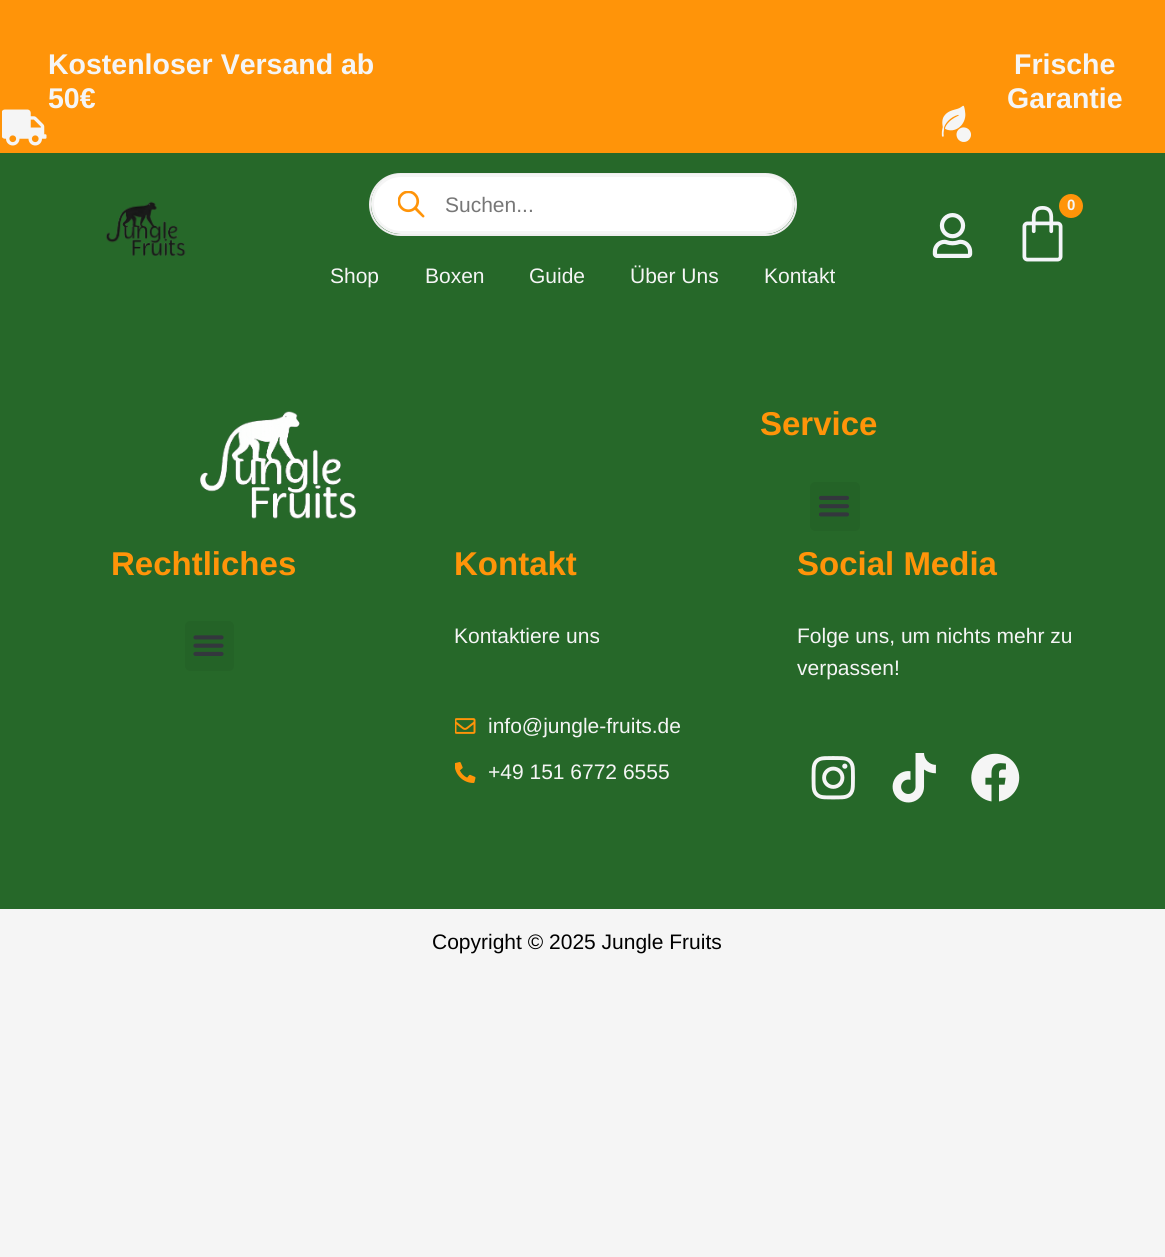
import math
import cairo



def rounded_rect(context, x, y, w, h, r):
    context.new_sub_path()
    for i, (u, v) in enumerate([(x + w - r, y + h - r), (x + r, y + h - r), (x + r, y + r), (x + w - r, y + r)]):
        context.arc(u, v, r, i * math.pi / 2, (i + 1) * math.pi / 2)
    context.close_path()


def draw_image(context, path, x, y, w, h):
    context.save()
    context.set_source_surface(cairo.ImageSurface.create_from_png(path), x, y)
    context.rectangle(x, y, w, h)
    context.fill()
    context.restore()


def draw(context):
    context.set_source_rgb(245 / 255, 245 / 255, 245 / 255)
    context.paint()
    context.set_source_rgb(1, 148 / 255, 9 / 255)
    context.rectangle(0, 0, 1165, 153)
    context.fill()
    draw_image(context, "images/1.png", 2, 109, 45, 37)
    draw_image(context, "images/2.png", 941, 105, 30, 37)
    context.set_source_rgb(38 / 255, 104 / 255, 41 / 255)
    context.rectangle(0, 153, 1165, 756)
    context.fill()
    draw_image(context, "images/3.png", 106, 201, 80, 55)
    rounded_rect(context, 370, 174, 426, 61, 30.5)
    context.set_source_rgb(238 / 255, 238 / 255, 238 / 255)
    context.stroke()
    context.set_source_rgb(1, 1, 1)
    rounded_rect(context, 372.5, 175.5, 421, 57, 28.5)
    context.fill_preserve()
    context.set_source_rgb(245 / 255, 245 / 255, 245 / 255)
    context.set_line_width(3)
    context.stroke()
    draw_image(context, "images/4.png", 398, 191, 27, 27)
    draw_image(context, "images/5.png", 1022, 206, 41, 56)
    context.set_source_rgb(1, 148 / 255, 9 / 255)
    context.arc(1071, 206, 12, 0, 2 * math.pi)
    context.fill()
    draw_image(context, "images/6.png", 932, 213, 41, 45)
    draw_image(context, "images/7.png", 200, 411, 156, 108)
    context.set_source_rgb(36 / 255, 99 / 255, 39 / 255)
    rounded_rect(context, 810, 482, 50, 49, 5)
    context.fill()
    draw_image(context, "images/8.png", 819, 495, 30, 22)
    rounded_rect(context, 185, 621, 49, 50, 5)
    context.fill()
    draw_image(context, "images/9.png", 193, 635, 31, 21)
    draw_image(context, "images/10.png", 455, 718, 21, 16)
    draw_image(context, "images/11.png", 455, 762, 21, 21)
    draw_image(context, "images/12.png", 811, 756, 44, 44)
    draw_image(context, "images/13.png", 892, 753, 44, 50)
    draw_image(context, "images/14.png", 971, 753, 49, 49)
    context.select_font_face("Liberation Sans", cairo.FontSlant.NORMAL, cairo.FontWeight.BOLD)
    context.set_font_size(28.5)
    context.set_source_rgb(245 / 255, 245 / 255, 245 / 255)
    context.move_to(48, 74)
    context.show_text("Kostenloser Versand ab")
    context.move_to(48, 108)
    context.show_text("50€")
    context.move_to(1014, 74)
    context.show_text("Frische")
    context.move_to(1007, 108)
    context.show_text("Garantie")
    context.select_font_face("Liberation Sans")
    context.set_font_size(21)
    context.set_source_rgb(119 / 255, 119 / 255, 119 / 255)
    context.move_to(445, 212)
    context.show_text("Suchen...")
    context.set_source_rgb(245 / 255, 245 / 255, 245 / 255)
    context.move_to(330, 283)
    context.show_text("Shop")
    context.move_to(425, 283)
    context.show_text("Boxen")
    context.move_to(529, 283)
    context.show_text("Guide")
    context.move_to(630, 283)
    context.show_text("Über Uns")
    context.move_to(764, 283)
    context.show_text("Kontakt")
    context.select_font_face("Liberation Sans", cairo.FontSlant.NORMAL, cairo.FontWeight.BOLD)
    context.set_font_size(15)
    context.move_to(1067, 210)
    context.show_text("0")
    context.set_font_size(33)
    context.set_source_rgb(1, 148 / 255, 9 / 255)
    context.move_to(760, 435)
    context.show_text("Service")
    context.move_to(111, 575)
    context.show_text("Rechtliches")
    context.move_to(454, 575)
    context.show_text("Kontakt")
    context.select_font_face("Liberation Sans")
    context.set_font_size(21)
    context.set_source_rgb(245 / 255, 245 / 255, 245 / 255)
    context.move_to(454, 643)
    context.show_text("Kontaktiere uns")
    context.move_to(488, 733)
    context.show_text("info@jungle-fruits.de")
    context.move_to(488, 779)
    context.show_text("+49 151 6772 6555")
    context.select_font_face("Liberation Sans", cairo.FontSlant.NORMAL, cairo.FontWeight.BOLD)
    context.set_font_size(33)
    context.set_source_rgb(1, 148 / 255, 9 / 255)
    context.move_to(797, 575)
    context.show_text("Social Media")
    context.select_font_face("Liberation Sans")
    context.set_font_size(21)
    context.set_source_rgb(245 / 255, 245 / 255, 245 / 255)
    context.move_to(797, 643)
    context.show_text("Folge uns, um nichts mehr zu")
    context.move_to(797, 675)
    context.show_text("verpassen!")
    context.set_source_rgb(0, 0, 0)
    context.move_to(432, 949)
    context.show_text("Copyright © 2025 Jungle Fruits")


surface = cairo.ImageSurface(cairo.Format.RGB24, 1165, 1257)
context = cairo.Context(surface)
options = cairo.FontOptions()
options.set_hint_metrics(cairo.HintMetrics.OFF)
options.set_hint_style(cairo.HintStyle.NONE)
context.set_font_options(options)
context.set_miter_limit(4)
draw(context)
surface.write_to_png("out.png")
